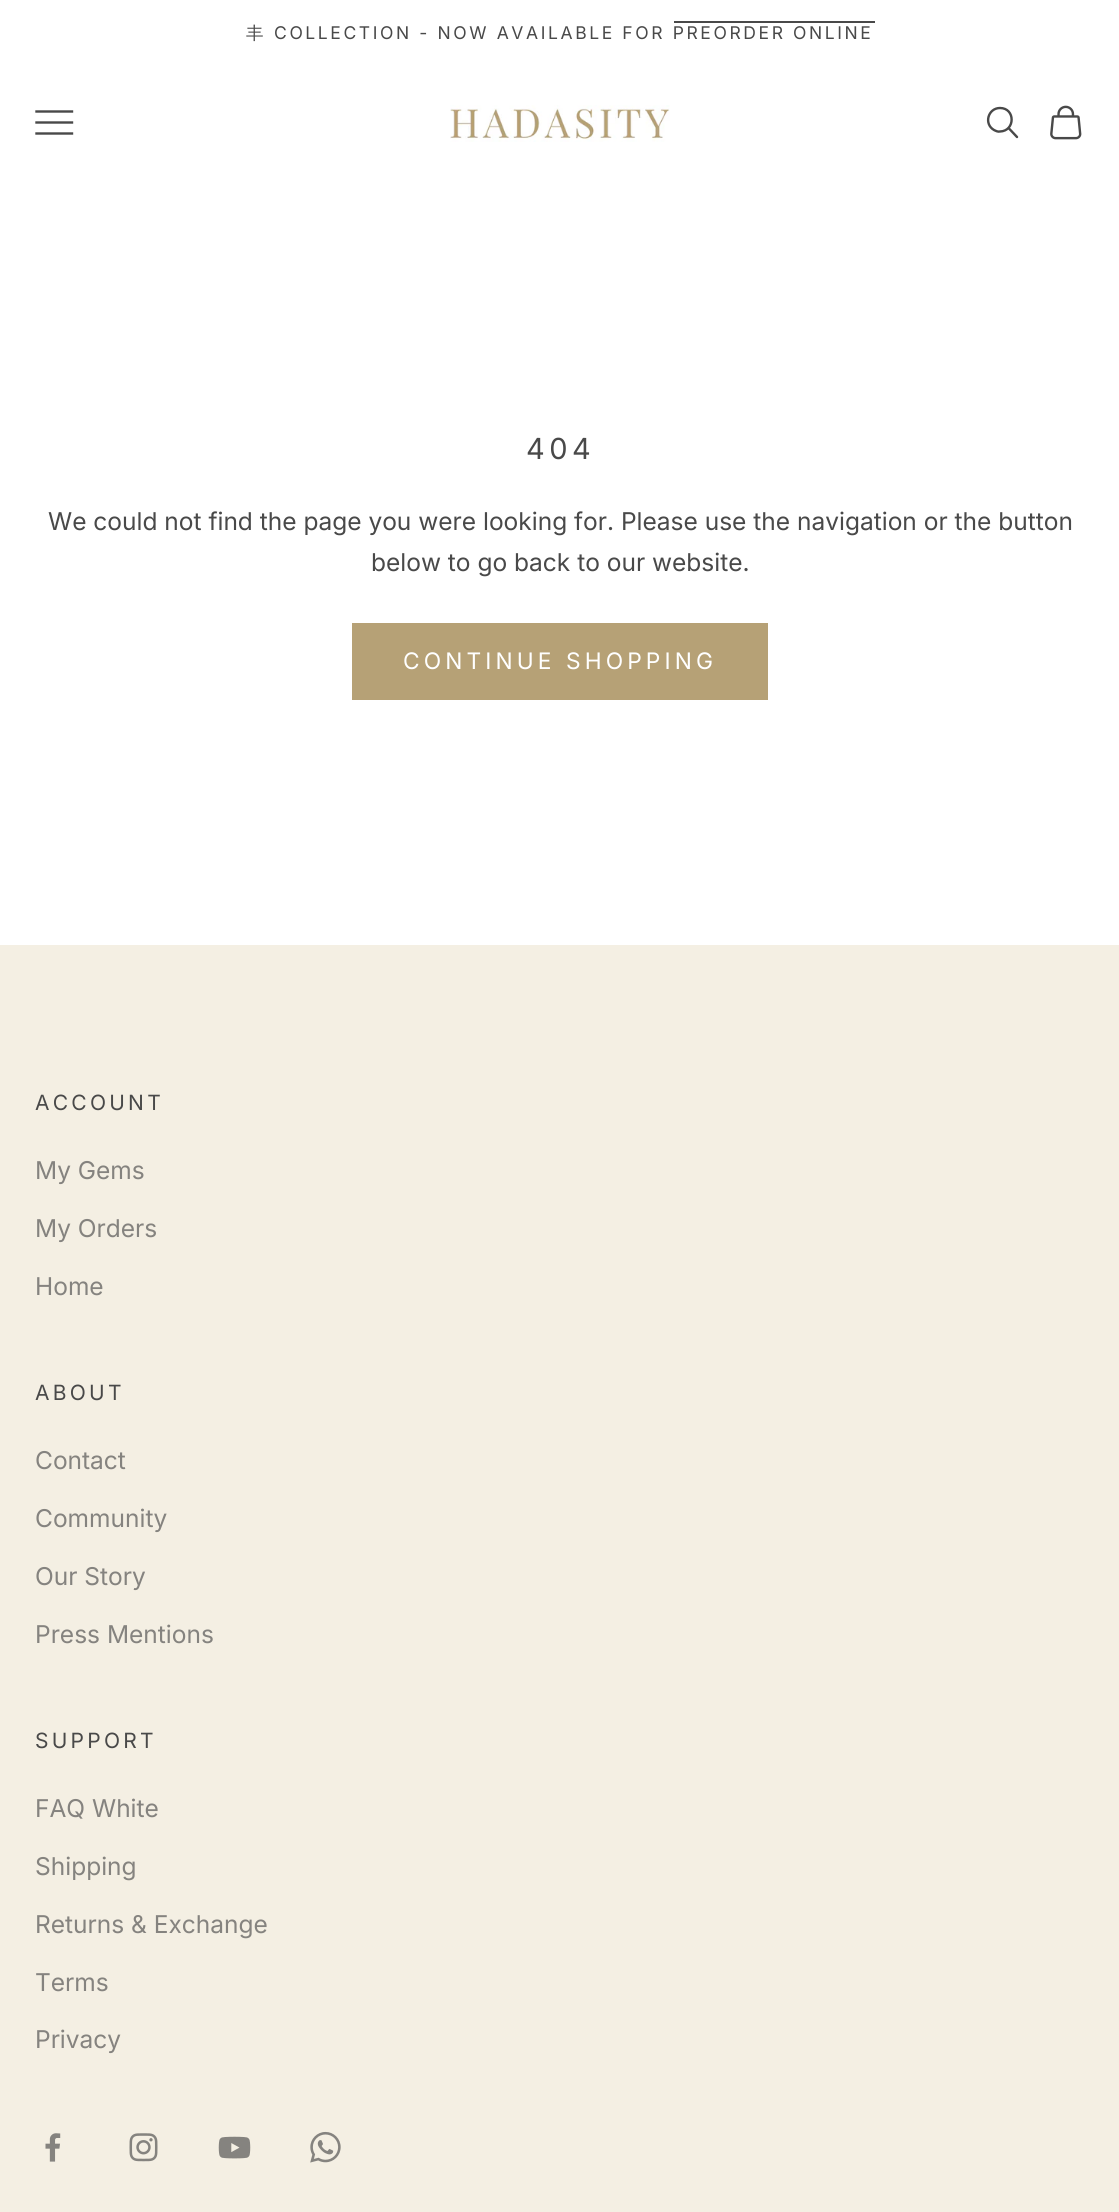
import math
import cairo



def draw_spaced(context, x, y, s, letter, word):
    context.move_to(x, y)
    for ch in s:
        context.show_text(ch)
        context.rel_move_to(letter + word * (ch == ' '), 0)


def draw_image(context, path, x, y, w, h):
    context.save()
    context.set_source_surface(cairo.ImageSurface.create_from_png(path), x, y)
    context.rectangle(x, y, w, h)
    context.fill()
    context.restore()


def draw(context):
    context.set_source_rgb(1, 1, 1)
    context.paint()
    context.set_source_rgb(73 / 255, 73 / 255, 73 / 255)
    context.rectangle(674, 21, 201, 2)
    context.fill()
    context.new_path()
    context.move_to(36.5, 133.5)
    context.line_to(72, 133.5)
    context.move_to(36.5, 122.5)
    context.line_to(72, 122.5)
    context.move_to(36.5, 111.5)
    context.line_to(72, 111.5)
    context.set_line_width(2.4)
    context.set_line_cap(cairo.LineCap.SQUARE)
    context.stroke()
    draw_image(context, "images/1.png", 450, 105, 220, 37)
    context.new_path()
    context.move_to(1000, 108)
    context.curve_to(988, 108, 983.5, 124, 994, 130)
    context.curve_to(996, 131, 998, 132, 1000, 131.5)
    context.curve_to(1015.5, 131, 1015.5, 108, 1000, 108)
    context.close_path()
    context.set_line_cap(cairo.LineCap.BUTT)
    context.stroke()
    context.new_path()
    context.move_to(1009, 128.5)
    context.line_to(1017, 137)
    context.set_line_cap(cairo.LineCap.ROUND)
    context.stroke()
    draw_image(context, "images/2.png", 1050, 105, 32, 35)
    context.set_source_rgb(182 / 255, 161 / 255, 118 / 255)
    context.rectangle(353, 624, 414, 75)
    context.fill_preserve()
    context.set_line_width(2)
    context.set_line_cap(cairo.LineCap.BUTT)
    context.stroke()
    context.set_source_rgb(244 / 255, 239 / 255, 227 / 255)
    context.rectangle(0, 945, 1119, 1267)
    context.fill()
    draw_image(context, "images/3.png", 45, 2133, 16, 29)
    draw_image(context, "images/4.png", 129, 2133, 29, 29)
    draw_image(context, "images/5.png", 218, 2136, 33, 23)
    draw_image(context, "images/6.png", 310, 2131, 31, 32)
    context.select_font_face("WenQuanYi Zen Hei Medium")
    context.set_font_size(17.5)
    context.set_source_rgb(73 / 255, 73 / 255, 73 / 255)
    draw_spaced(context, 246, 39, "丰", 2.6, 0)
    context.select_font_face("Inter")
    draw_spaced(context, 274, 39, "COLLECTION - NOW AVAILABLE FOR PREORDER ONLINE", 2.6, 0)
    context.set_font_size(29)
    draw_spaced(context, 526, 459, "404", 4.5, 0)
    context.set_font_size(24.5)
    context.move_to(48, 530)
    context.show_text("We could not find the page you were looking for. Please use the navigation or the button")
    context.move_to(371, 571)
    context.show_text("below to go back to our website.")
    context.set_font_size(22.75)
    context.set_source_rgb(1, 1, 1)
    draw_spaced(context, 403, 669, "CONTINUE SHOPPING", 4.1, 0)
    context.set_font_size(21)
    context.set_source_rgb(73 / 255, 73 / 255, 73 / 255)
    draw_spaced(context, 35, 1110, "ACCOUNT", 3.25, 0)
    context.set_font_size(24.5)
    context.set_source_rgb(133 / 255, 131 / 255, 127 / 255)
    context.move_to(35, 1179)
    context.show_text("My Gems")
    context.move_to(35, 1237)
    context.show_text("My Orders")
    context.move_to(35, 1295)
    context.show_text("Home")
    context.set_font_size(21)
    context.set_source_rgb(73 / 255, 73 / 255, 73 / 255)
    draw_spaced(context, 35, 1400, "ABOUT", 3.25, 0)
    context.set_font_size(24.5)
    context.set_source_rgb(133 / 255, 131 / 255, 127 / 255)
    context.move_to(35, 1469)
    context.show_text("Contact")
    context.move_to(35, 1527)
    context.show_text("Community")
    context.move_to(35, 1585)
    context.show_text("Our Story")
    context.move_to(35, 1643)
    context.show_text("Press Mentions")
    context.set_font_size(21)
    context.set_source_rgb(73 / 255, 73 / 255, 73 / 255)
    draw_spaced(context, 35, 1748, "SUPPORT", 3.25, 0)
    context.set_font_size(24.5)
    context.set_source_rgb(133 / 255, 131 / 255, 127 / 255)
    context.move_to(35, 1817)
    context.show_text("FAQ White")
    context.move_to(35, 1875)
    context.show_text("Shipping")
    context.move_to(35, 1933)
    context.show_text("Returns & Exchange")
    context.move_to(35, 1991)
    context.show_text("Terms")
    context.move_to(35, 2048)
    context.show_text("Privacy")


surface = cairo.ImageSurface(cairo.Format.RGB24, 1119, 2212)
context = cairo.Context(surface)
options = cairo.FontOptions()
options.set_hint_metrics(cairo.HintMetrics.OFF)
options.set_hint_style(cairo.HintStyle.NONE)
context.set_font_options(options)
context.set_miter_limit(4)
draw(context)
surface.write_to_png("out.png")
